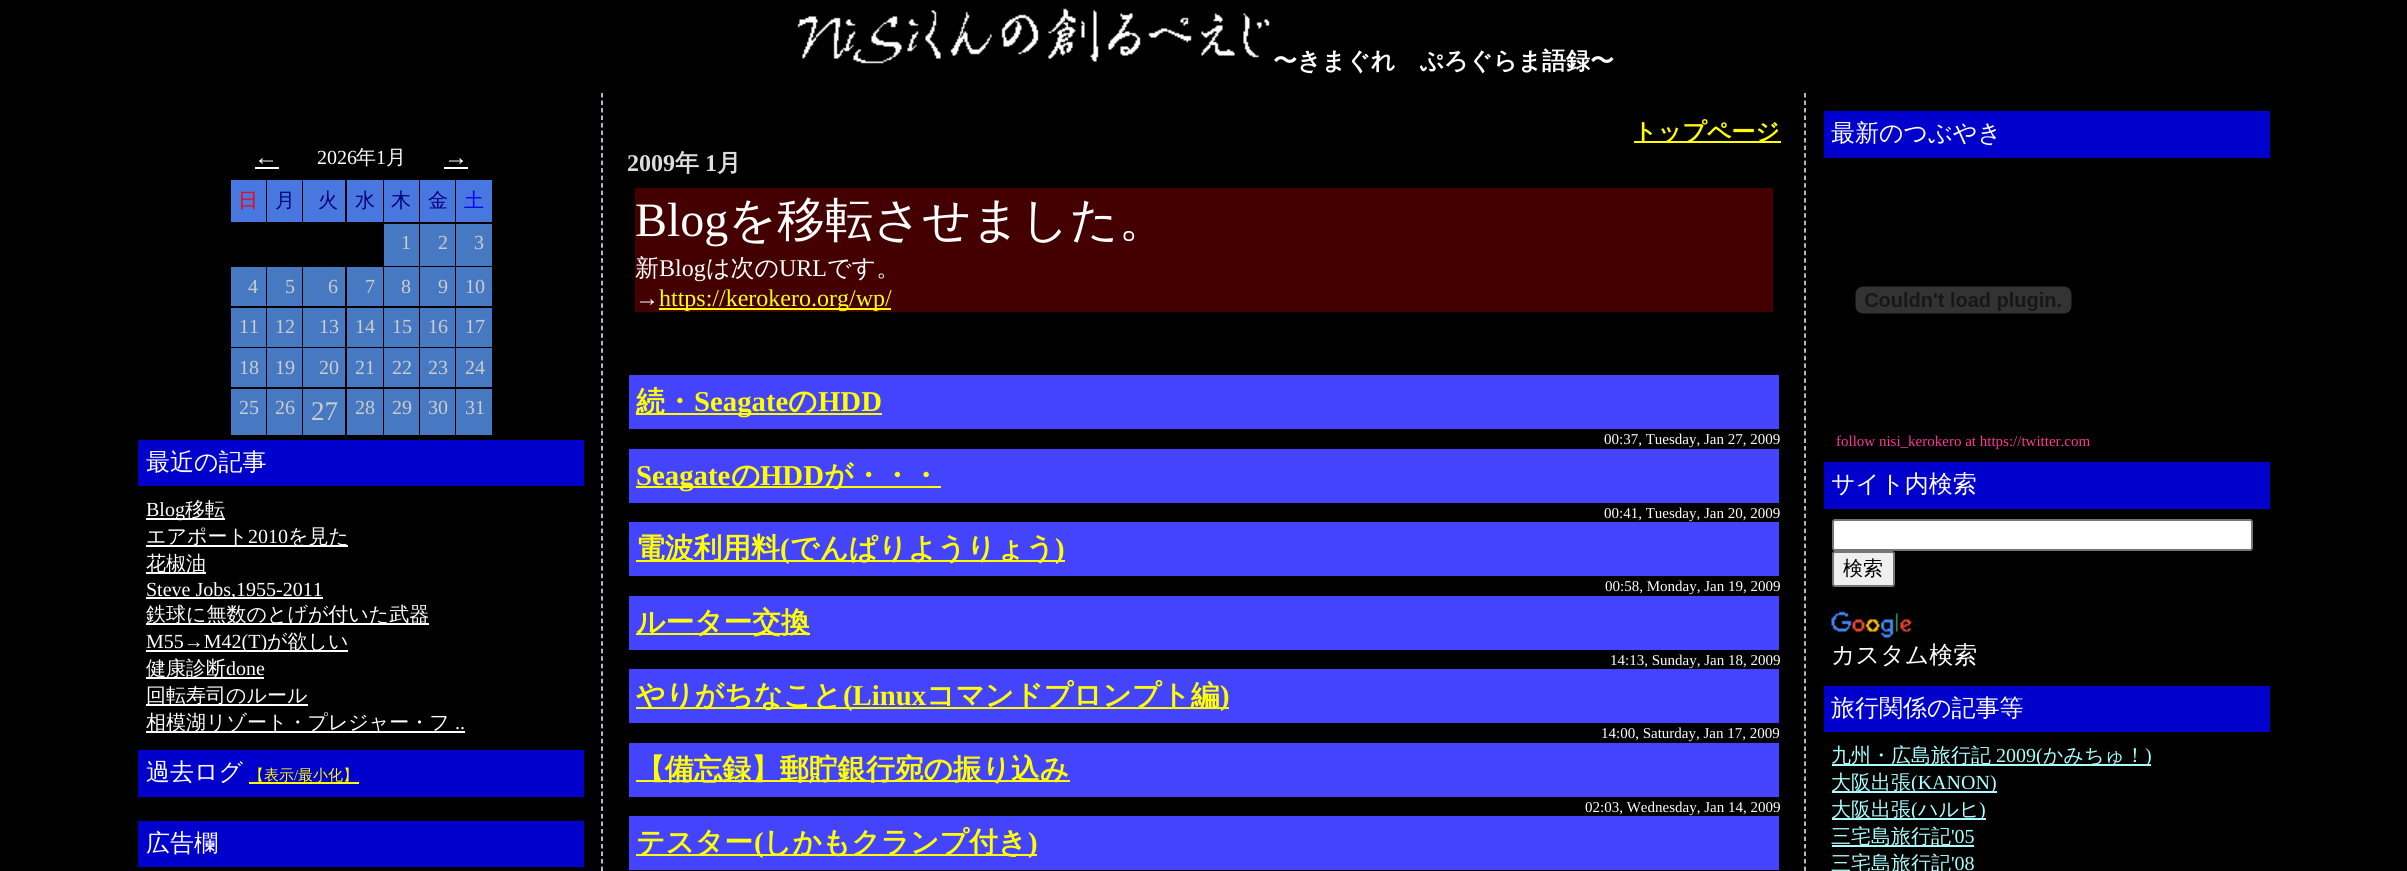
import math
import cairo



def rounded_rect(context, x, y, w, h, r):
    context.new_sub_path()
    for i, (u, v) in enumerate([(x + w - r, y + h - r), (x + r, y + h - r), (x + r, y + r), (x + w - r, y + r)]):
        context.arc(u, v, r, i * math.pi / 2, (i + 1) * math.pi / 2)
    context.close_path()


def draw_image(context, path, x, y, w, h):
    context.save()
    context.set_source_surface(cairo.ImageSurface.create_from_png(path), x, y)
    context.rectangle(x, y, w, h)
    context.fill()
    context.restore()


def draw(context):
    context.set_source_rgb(0, 0, 0)
    context.paint()
    draw_image(context, "images/1.png", 797, 8, 473, 56)
    context.set_source_rgb(1, 1, 1)
    context.rectangle(255, 167, 24, 2)
    context.fill()
    context.rectangle(444, 167, 24, 2)
    context.fill()
    context.set_source_rgb(72 / 255, 119 / 255, 223 / 255)
    context.rectangle(231, 180, 35, 42)
    context.fill()
    context.rectangle(267, 180, 35, 42)
    context.fill()
    context.rectangle(303, 180, 42, 42)
    context.fill()
    context.rectangle(347, 180, 36, 42)
    context.fill()
    context.rectangle(384, 180, 35, 42)
    context.fill()
    context.rectangle(420, 180, 35, 42)
    context.fill()
    context.rectangle(456, 180, 36, 42)
    context.fill()
    context.set_source_rgb(71 / 255, 121 / 255, 194 / 255)
    context.rectangle(384, 224, 35, 42)
    context.fill()
    context.rectangle(420, 224, 35, 42)
    context.fill()
    context.rectangle(456, 224, 36, 42)
    context.fill()
    context.rectangle(231, 267, 35, 39)
    context.fill()
    context.rectangle(267, 267, 35, 39)
    context.fill()
    context.rectangle(303, 267, 42, 39)
    context.fill()
    context.rectangle(347, 267, 36, 39)
    context.fill()
    context.rectangle(384, 267, 35, 39)
    context.fill()
    context.rectangle(420, 267, 35, 39)
    context.fill()
    context.rectangle(456, 267, 36, 39)
    context.fill()
    context.rectangle(231, 308, 35, 39)
    context.fill()
    context.rectangle(267, 308, 35, 39)
    context.fill()
    context.rectangle(303, 308, 42, 39)
    context.fill()
    context.rectangle(347, 308, 36, 39)
    context.fill()
    context.rectangle(384, 308, 35, 39)
    context.fill()
    context.rectangle(420, 308, 35, 39)
    context.fill()
    context.rectangle(456, 308, 36, 39)
    context.fill()
    context.rectangle(231, 348, 35, 39)
    context.fill()
    context.rectangle(267, 348, 35, 39)
    context.fill()
    context.rectangle(303, 348, 42, 39)
    context.fill()
    context.rectangle(347, 348, 36, 39)
    context.fill()
    context.rectangle(384, 348, 35, 39)
    context.fill()
    context.rectangle(420, 348, 35, 39)
    context.fill()
    context.rectangle(456, 348, 36, 39)
    context.fill()
    context.rectangle(231, 389, 35, 46)
    context.fill()
    context.rectangle(267, 389, 35, 46)
    context.fill()
    context.rectangle(303, 389, 42, 46)
    context.fill()
    context.rectangle(347, 389, 36, 46)
    context.fill()
    context.rectangle(384, 389, 35, 46)
    context.fill()
    context.rectangle(420, 389, 35, 46)
    context.fill()
    context.rectangle(456, 389, 36, 46)
    context.fill()
    context.set_source_rgb(0, 0, 205 / 255)
    context.rectangle(138, 440, 446, 46)
    context.fill()
    context.set_source_rgb(1, 1, 1)
    context.rectangle(146, 518, 79, 2)
    context.fill()
    context.rectangle(146, 545, 202, 2)
    context.fill()
    context.rectangle(146, 572, 60, 2)
    context.fill()
    context.rectangle(146, 597, 177, 2)
    context.fill()
    context.rectangle(146, 623, 283, 2)
    context.fill()
    context.rectangle(146, 650, 202, 2)
    context.fill()
    context.rectangle(146, 677, 118, 2)
    context.fill()
    context.rectangle(146, 704, 162, 2)
    context.fill()
    context.rectangle(146, 731, 319, 2)
    context.fill()
    context.set_source_rgb(0, 0, 205 / 255)
    context.rectangle(138, 750, 446, 47)
    context.fill()
    context.set_source_rgb(1, 1, 0)
    context.rectangle(249, 782, 110, 2)
    context.fill()
    context.set_source_rgb(0, 0, 205 / 255)
    context.rectangle(138, 821, 446, 46)
    context.fill()
    context.new_path()
    context.move_to(1805, 93)
    context.line_to(1805, 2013)
    context.set_source_rgb(242 / 255, 242 / 255, 1)
    context.set_line_width(1.5)
    context.set_dash([4.5, 3.01])
    context.stroke()
    context.new_path()
    context.move_to(602, 93)
    context.line_to(602, 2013)
    context.stroke()
    context.set_source_rgb(1, 1, 0)
    context.rectangle(1634, 141, 147, 2)
    context.fill()
    context.set_source_rgb(68 / 255, 0, 0)
    context.rectangle(635, 188, 1138, 124)
    context.fill()
    context.set_source_rgb(1, 1, 0)
    context.rectangle(659, 308, 232, 2)
    context.fill()
    context.set_source_rgb(68 / 255, 68 / 255, 1)
    context.rectangle(629, 375, 1150, 54)
    context.fill()
    context.set_source_rgb(1, 1, 0)
    context.rectangle(636, 413, 246, 2)
    context.fill()
    context.set_source_rgb(68 / 255, 68 / 255, 1)
    context.rectangle(629, 449, 1150, 54)
    context.fill()
    context.set_source_rgb(1, 1, 0)
    context.rectangle(636, 486, 305, 2)
    context.fill()
    context.set_source_rgb(68 / 255, 68 / 255, 1)
    context.rectangle(629, 522, 1150, 54)
    context.fill()
    context.set_source_rgb(1, 1, 0)
    context.rectangle(636, 560, 429, 2)
    context.fill()
    context.set_source_rgb(68 / 255, 68 / 255, 1)
    context.rectangle(629, 596, 1150, 54)
    context.fill()
    context.set_source_rgb(1, 1, 0)
    context.rectangle(636, 633, 174, 2)
    context.fill()
    context.set_source_rgb(68 / 255, 68 / 255, 1)
    context.rectangle(629, 669, 1150, 54)
    context.fill()
    context.set_source_rgb(1, 1, 0)
    context.rectangle(636, 707, 593, 2)
    context.fill()
    context.set_source_rgb(68 / 255, 68 / 255, 1)
    context.rectangle(629, 743, 1150, 54)
    context.fill()
    context.set_source_rgb(1, 1, 0)
    context.rectangle(636, 780, 434, 2)
    context.fill()
    context.set_source_rgb(68 / 255, 68 / 255, 1)
    context.rectangle(629, 816, 1150, 54)
    context.fill()
    context.set_source_rgb(1, 1, 0)
    context.rectangle(636, 854, 401, 2)
    context.fill()
    context.set_source_rgb(0, 0, 205 / 255)
    context.rectangle(1824, 111, 446, 47)
    context.fill()
    draw_image(context, "images/2.png", 1855, 286, 217, 28)
    context.rectangle(1824, 462, 446, 47)
    context.fill()
    context.set_source_rgb(1, 1, 1)
    rounded_rect(context, 1833, 520, 419, 30, 2)
    context.fill_preserve()
    context.set_source_rgb(118 / 255, 118 / 255, 118 / 255)
    context.set_line_width(2)
    context.set_dash([])
    context.stroke()
    context.set_source_rgb(239 / 255, 239 / 255, 239 / 255)
    rounded_rect(context, 1833, 552, 61, 34, 2)
    context.fill_preserve()
    context.set_source_rgb(118 / 255, 118 / 255, 118 / 255)
    context.stroke()
    draw_image(context, "images/3.png", 1831, 611, 81, 27)
    context.set_source_rgb(0, 0, 205 / 255)
    context.rectangle(1824, 686, 446, 46)
    context.fill()
    context.set_source_rgb(170 / 255, 1, 1)
    context.rectangle(1832, 764, 319, 2)
    context.fill()
    context.rectangle(1832, 791, 165, 2)
    context.fill()
    context.rectangle(1832, 818, 154, 2)
    context.fill()
    context.rectangle(1832, 845, 142, 2)
    context.fill()
    context.select_font_face("WenQuanYi Zen Hei", cairo.FontSlant.NORMAL, cairo.FontWeight.BOLD)
    context.set_font_size(24)
    context.set_source_rgb(1, 1, 1)
    context.move_to(1273, 69)
    context.show_text("〜きまぐれ　ぷろぐらま語録〜")
    context.select_font_face("Liberation Serif")
    context.move_to(254, 165)
    context.show_text("←")
    context.set_font_size(20)
    context.move_to(317, 164)
    context.show_text("2026")
    context.select_font_face("WenQuanYi Zen Hei Medium")
    context.move_to(356, 164)
    context.show_text("年")
    context.select_font_face("Liberation Serif")
    context.move_to(376, 164)
    context.show_text("1")
    context.select_font_face("WenQuanYi Zen Hei Medium")
    context.move_to(386, 164)
    context.show_text("月")
    context.select_font_face("Liberation Serif")
    context.set_font_size(24)
    context.move_to(444, 165)
    context.show_text("→")
    context.select_font_face("WenQuanYi Zen Hei Medium")
    context.set_font_size(20)
    context.set_source_rgb(1, 0, 0)
    context.move_to(238, 207)
    context.show_text("日")
    context.set_source_rgb(0, 0, 128 / 255)
    context.move_to(275, 207)
    context.show_text("月")
    context.move_to(318, 207)
    context.show_text("火")
    context.move_to(355, 207)
    context.show_text("水")
    context.move_to(391, 207)
    context.show_text("木")
    context.move_to(428, 207)
    context.show_text("金")
    context.set_source_rgb(0, 0, 1)
    context.move_to(464, 207)
    context.show_text("土")
    context.select_font_face("Liberation Serif")
    context.set_source_rgb(204 / 255, 204 / 255, 204 / 255)
    context.move_to(401, 249)
    context.show_text("1")
    context.move_to(438, 249)
    context.show_text("2")
    context.move_to(474, 249)
    context.show_text("3")
    context.move_to(248, 293)
    context.show_text("4")
    context.move_to(285, 293)
    context.show_text("5")
    context.move_to(328, 293)
    context.show_text("6")
    context.move_to(365, 293)
    context.show_text("7")
    context.move_to(401, 293)
    context.show_text("8")
    context.move_to(438, 293)
    context.show_text("9")
    context.move_to(465, 293)
    context.show_text("10")
    context.move_to(239, 333)
    context.show_text("11")
    context.move_to(275, 333)
    context.show_text("12")
    context.move_to(319, 333)
    context.show_text("13")
    context.move_to(355, 333)
    context.show_text("14")
    context.move_to(392, 333)
    context.show_text("15")
    context.move_to(428, 333)
    context.show_text("16")
    context.move_to(465, 333)
    context.show_text("17")
    context.move_to(239, 374)
    context.show_text("18")
    context.move_to(275, 374)
    context.show_text("19")
    context.move_to(319, 374)
    context.show_text("20")
    context.move_to(355, 374)
    context.show_text("21")
    context.move_to(392, 374)
    context.show_text("22")
    context.move_to(428, 374)
    context.show_text("23")
    context.move_to(465, 374)
    context.show_text("24")
    context.move_to(239, 414)
    context.show_text("25")
    context.move_to(275, 414)
    context.show_text("26")
    context.set_font_size(27)
    context.move_to(311, 420)
    context.show_text("27")
    context.set_font_size(20)
    context.move_to(355, 414)
    context.show_text("28")
    context.move_to(392, 414)
    context.show_text("29")
    context.move_to(428, 414)
    context.show_text("30")
    context.move_to(465, 414)
    context.show_text("31")
    context.select_font_face("WenQuanYi Zen Hei Medium")
    context.set_font_size(24)
    context.set_source_rgb(1, 1, 1)
    context.move_to(146, 470)
    context.show_text("最近の記事")
    context.select_font_face("Liberation Serif")
    context.set_font_size(20)
    context.move_to(146, 516)
    context.show_text("Blog")
    context.select_font_face("WenQuanYi Zen Hei Medium")
    context.move_to(185, 516)
    context.show_text("移転")
    context.move_to(146, 543)
    context.show_text("エアポート")
    context.select_font_face("Liberation Serif")
    context.move_to(248, 543)
    context.show_text("2010")
    context.select_font_face("WenQuanYi Zen Hei Medium")
    context.move_to(288, 543)
    context.show_text("を見た")
    context.move_to(146, 570)
    context.show_text("花椒油")
    context.select_font_face("Liberation Serif")
    context.move_to(146, 596)
    context.show_text("Steve Jobs,1955-2011")
    context.select_font_face("WenQuanYi Zen Hei Medium")
    context.move_to(146, 621)
    context.show_text("鉄球に無数のとげが付いた武器")
    context.select_font_face("Liberation Serif")
    context.move_to(146, 648)
    context.show_text("M55→M42(T)")
    context.select_font_face("WenQuanYi Zen Hei Medium")
    context.move_to(267, 648)
    context.show_text("が欲しい")
    context.move_to(146, 675)
    context.show_text("健康診断")
    context.select_font_face("Liberation Serif")
    context.move_to(226, 675)
    context.show_text("done")
    context.select_font_face("WenQuanYi Zen Hei Medium")
    context.move_to(146, 702)
    context.show_text("回転寿司のルール")
    context.move_to(146, 729)
    context.show_text("相模湖リゾート・プレジャー・フ")
    context.select_font_face("Liberation Serif")
    context.move_to(455, 729)
    context.show_text("..")
    context.select_font_face("WenQuanYi Zen Hei Medium")
    context.set_font_size(24)
    context.move_to(146, 780)
    context.show_text("過去ログ")
    context.set_font_size(15)
    context.set_source_rgb(1, 1, 0)
    context.move_to(249, 780)
    context.show_text("【表示")
    context.select_font_face("Liberation Serif")
    context.move_to(294, 780)
    context.show_text("/")
    context.select_font_face("WenQuanYi Zen Hei Medium")
    context.move_to(298, 780)
    context.show_text("最小化】")
    context.set_font_size(24)
    context.set_source_rgb(1, 1, 1)
    context.move_to(146, 851)
    context.show_text("広告欄")
    context.select_font_face("WenQuanYi Zen Hei", cairo.FontSlant.NORMAL, cairo.FontWeight.BOLD)
    context.set_source_rgb(1, 1, 0)
    context.move_to(1633, 140)
    context.show_text("トップページ")
    context.select_font_face("Liberation Serif", cairo.FontSlant.NORMAL, cairo.FontWeight.BOLD)
    context.set_source_rgb(221 / 255, 221 / 255, 221 / 255)
    context.move_to(627, 171)
    context.show_text("2009")
    context.select_font_face("WenQuanYi Zen Hei", cairo.FontSlant.NORMAL, cairo.FontWeight.BOLD)
    context.move_to(675, 171)
    context.show_text("年")
    context.select_font_face("Liberation Serif", cairo.FontSlant.NORMAL, cairo.FontWeight.BOLD)
    context.move_to(705, 171)
    context.show_text("1")
    context.select_font_face("WenQuanYi Zen Hei", cairo.FontSlant.NORMAL, cairo.FontWeight.BOLD)
    context.move_to(717, 171)
    context.show_text("月")
    context.select_font_face("Liberation Serif")
    context.set_font_size(48)
    context.set_source_rgb(1, 1, 1)
    context.move_to(635, 236)
    context.show_text("Blog")
    context.select_font_face("WenQuanYi Zen Hei Medium")
    context.move_to(728, 236)
    context.show_text("を移転させました。")
    context.set_font_size(24)
    context.move_to(635, 276)
    context.show_text("新")
    context.select_font_face("Liberation Serif")
    context.move_to(659, 276)
    context.show_text("Blog")
    context.select_font_face("WenQuanYi Zen Hei Medium")
    context.move_to(706, 276)
    context.show_text("は次の")
    context.select_font_face("Liberation Serif")
    context.move_to(779, 276)
    context.show_text("URL")
    context.select_font_face("WenQuanYi Zen Hei Medium")
    context.move_to(827, 276)
    context.show_text("です。")
    context.select_font_face("Liberation Serif")
    context.move_to(635, 306)
    context.show_text("→")
    context.set_source_rgb(1, 1, 0)
    context.move_to(659, 306)
    context.show_text("https://kerokero.org/wp/")
    context.select_font_face("WenQuanYi Zen Hei", cairo.FontSlant.NORMAL, cairo.FontWeight.BOLD)
    context.set_font_size(28.75)
    context.move_to(636, 411)
    context.show_text("続・")
    context.select_font_face("Liberation Serif", cairo.FontSlant.NORMAL, cairo.FontWeight.BOLD)
    context.move_to(694, 411)
    context.show_text("Seagate")
    context.select_font_face("WenQuanYi Zen Hei", cairo.FontSlant.NORMAL, cairo.FontWeight.BOLD)
    context.move_to(788, 411)
    context.show_text("の")
    context.select_font_face("Liberation Serif", cairo.FontSlant.NORMAL, cairo.FontWeight.BOLD)
    context.move_to(818, 411)
    context.show_text("HDD")
    context.select_font_face("Liberation Serif")
    context.set_font_size(15)
    context.set_source_rgb(1, 1, 1)
    context.move_to(1604, 444)
    context.show_text("00:37, Tuesday, Jan 27, 2009")
    context.select_font_face("Liberation Serif", cairo.FontSlant.NORMAL, cairo.FontWeight.BOLD)
    context.set_font_size(28.75)
    context.set_source_rgb(1, 1, 0)
    context.move_to(636, 485)
    context.show_text("Seagate")
    context.select_font_face("WenQuanYi Zen Hei", cairo.FontSlant.NORMAL, cairo.FontWeight.BOLD)
    context.move_to(731, 485)
    context.show_text("の")
    context.select_font_face("Liberation Serif", cairo.FontSlant.NORMAL, cairo.FontWeight.BOLD)
    context.move_to(760, 485)
    context.show_text("HDD")
    context.select_font_face("WenQuanYi Zen Hei", cairo.FontSlant.NORMAL, cairo.FontWeight.BOLD)
    context.move_to(824, 485)
    context.show_text("が・・・")
    context.select_font_face("Liberation Serif")
    context.set_font_size(15)
    context.set_source_rgb(1, 1, 1)
    context.move_to(1604, 518)
    context.show_text("00:41, Tuesday, Jan 20, 2009")
    context.select_font_face("WenQuanYi Zen Hei", cairo.FontSlant.NORMAL, cairo.FontWeight.BOLD)
    context.set_font_size(28.75)
    context.set_source_rgb(1, 1, 0)
    context.move_to(636, 558)
    context.show_text("電波利用料")
    context.select_font_face("Liberation Serif", cairo.FontSlant.NORMAL, cairo.FontWeight.BOLD)
    context.move_to(780, 558)
    context.show_text("(")
    context.select_font_face("WenQuanYi Zen Hei", cairo.FontSlant.NORMAL, cairo.FontWeight.BOLD)
    context.move_to(790, 558)
    context.show_text("でんぱりようりょう")
    context.select_font_face("Liberation Serif", cairo.FontSlant.NORMAL, cairo.FontWeight.BOLD)
    context.move_to(1055, 558)
    context.show_text(")")
    context.select_font_face("Liberation Serif")
    context.set_font_size(15)
    context.set_source_rgb(1, 1, 1)
    context.move_to(1605, 591)
    context.show_text("00:58, Monday, Jan 19, 2009")
    context.select_font_face("WenQuanYi Zen Hei", cairo.FontSlant.NORMAL, cairo.FontWeight.BOLD)
    context.set_font_size(28.75)
    context.set_source_rgb(1, 1, 0)
    context.move_to(636, 632)
    context.show_text("ルーター交換")
    context.select_font_face("Liberation Serif")
    context.set_font_size(15)
    context.set_source_rgb(1, 1, 1)
    context.move_to(1610, 665)
    context.show_text("14:13, Sunday, Jan 18, 2009")
    context.select_font_face("WenQuanYi Zen Hei", cairo.FontSlant.NORMAL, cairo.FontWeight.BOLD)
    context.set_font_size(28.75)
    context.set_source_rgb(1, 1, 0)
    context.move_to(636, 705)
    context.show_text("やりがちなこと")
    context.select_font_face("Liberation Serif", cairo.FontSlant.NORMAL, cairo.FontWeight.BOLD)
    context.move_to(843, 705)
    context.show_text("(Linux")
    context.select_font_face("WenQuanYi Zen Hei", cairo.FontSlant.NORMAL, cairo.FontWeight.BOLD)
    context.move_to(926, 705)
    context.show_text("コマンドプロンプト編")
    context.select_font_face("Liberation Serif", cairo.FontSlant.NORMAL, cairo.FontWeight.BOLD)
    context.move_to(1220, 705)
    context.show_text(")")
    context.select_font_face("Liberation Serif")
    context.set_font_size(15)
    context.set_source_rgb(1, 1, 1)
    context.move_to(1601, 738)
    context.show_text("14:00, Saturday, Jan 17, 2009")
    context.select_font_face("WenQuanYi Zen Hei", cairo.FontSlant.NORMAL, cairo.FontWeight.BOLD)
    context.set_font_size(28.75)
    context.set_source_rgb(1, 1, 0)
    context.move_to(636, 779)
    context.show_text("【備忘録】郵貯銀行宛の振り込み")
    context.select_font_face("Liberation Serif")
    context.set_font_size(15)
    context.set_source_rgb(1, 1, 1)
    context.move_to(1585, 812)
    context.show_text("02:03, Wednesday, Jan 14, 2009")
    context.select_font_face("WenQuanYi Zen Hei", cairo.FontSlant.NORMAL, cairo.FontWeight.BOLD)
    context.set_font_size(28.75)
    context.set_source_rgb(1, 1, 0)
    context.move_to(636, 852)
    context.show_text("テスター")
    context.select_font_face("Liberation Serif", cairo.FontSlant.NORMAL, cairo.FontWeight.BOLD)
    context.move_to(754, 852)
    context.show_text("(")
    context.select_font_face("WenQuanYi Zen Hei", cairo.FontSlant.NORMAL, cairo.FontWeight.BOLD)
    context.move_to(763, 852)
    context.show_text("しかもクランプ付き")
    context.select_font_face("Liberation Serif", cairo.FontSlant.NORMAL, cairo.FontWeight.BOLD)
    context.move_to(1028, 852)
    context.show_text(")")
    context.select_font_face("WenQuanYi Zen Hei Medium")
    context.set_font_size(24)
    context.set_source_rgb(1, 1, 1)
    context.move_to(1831, 141)
    context.show_text("最新のつぶやき")
    context.select_font_face("Liberation Serif")
    context.set_font_size(15)
    context.set_source_rgb(253 / 255, 54 / 255, 153 / 255)
    context.move_to(1836, 446)
    context.show_text("follow nisi_kerokero at https://twitter.com")
    context.select_font_face("WenQuanYi Zen Hei Medium")
    context.set_font_size(24)
    context.set_source_rgb(1, 1, 1)
    context.move_to(1831, 492)
    context.show_text("サイト内検索")
    context.set_font_size(20)
    context.set_source_rgb(0, 0, 0)
    context.move_to(1843, 575)
    context.show_text("検索")
    context.set_font_size(24)
    context.set_source_rgb(1, 1, 1)
    context.move_to(1831, 663)
    context.show_text("カスタム検索")
    context.move_to(1831, 716)
    context.show_text("旅行関係の記事等")
    context.set_font_size(20)
    context.set_source_rgb(170 / 255, 1, 1)
    context.move_to(1831, 762)
    context.show_text("九州・広島旅行記")
    context.select_font_face("Liberation Serif")
    context.move_to(1996, 762)
    context.show_text("2009(")
    context.select_font_face("WenQuanYi Zen Hei Medium")
    context.move_to(2043, 762)
    context.show_text("かみちゅ！")
    context.select_font_face("Liberation Serif")
    context.move_to(2145, 762)
    context.show_text(")")
    context.select_font_face("WenQuanYi Zen Hei Medium")
    context.move_to(1831, 789)
    context.show_text("大阪出張")
    context.select_font_face("Liberation Serif")
    context.move_to(1911, 789)
    context.show_text("(KANON)")
    context.select_font_face("WenQuanYi Zen Hei Medium")
    context.move_to(1831, 816)
    context.show_text("大阪出張")
    context.select_font_face("Liberation Serif")
    context.move_to(1911, 816)
    context.show_text("(")
    context.select_font_face("WenQuanYi Zen Hei Medium")
    context.move_to(1918, 816)
    context.show_text("ハルヒ")
    context.select_font_face("Liberation Serif")
    context.move_to(1979, 816)
    context.show_text(")")
    context.select_font_face("WenQuanYi Zen Hei Medium")
    context.move_to(1831, 843)
    context.show_text("三宅島旅行記")
    context.select_font_face("Liberation Serif")
    context.move_to(1951, 843)
    context.show_text("'05")
    context.select_font_face("WenQuanYi Zen Hei Medium")
    context.move_to(1831, 870)
    context.show_text("三宅島旅行記")
    context.select_font_face("Liberation Serif")
    context.move_to(1951, 870)
    context.show_text("'08")


surface = cairo.ImageSurface(cairo.Format.RGB24, 2407, 871)
context = cairo.Context(surface)
options = cairo.FontOptions()
options.set_hint_metrics(cairo.HintMetrics.OFF)
options.set_hint_style(cairo.HintStyle.NONE)
context.set_font_options(options)
context.set_miter_limit(4)
draw(context)
surface.write_to_png("out.png")
